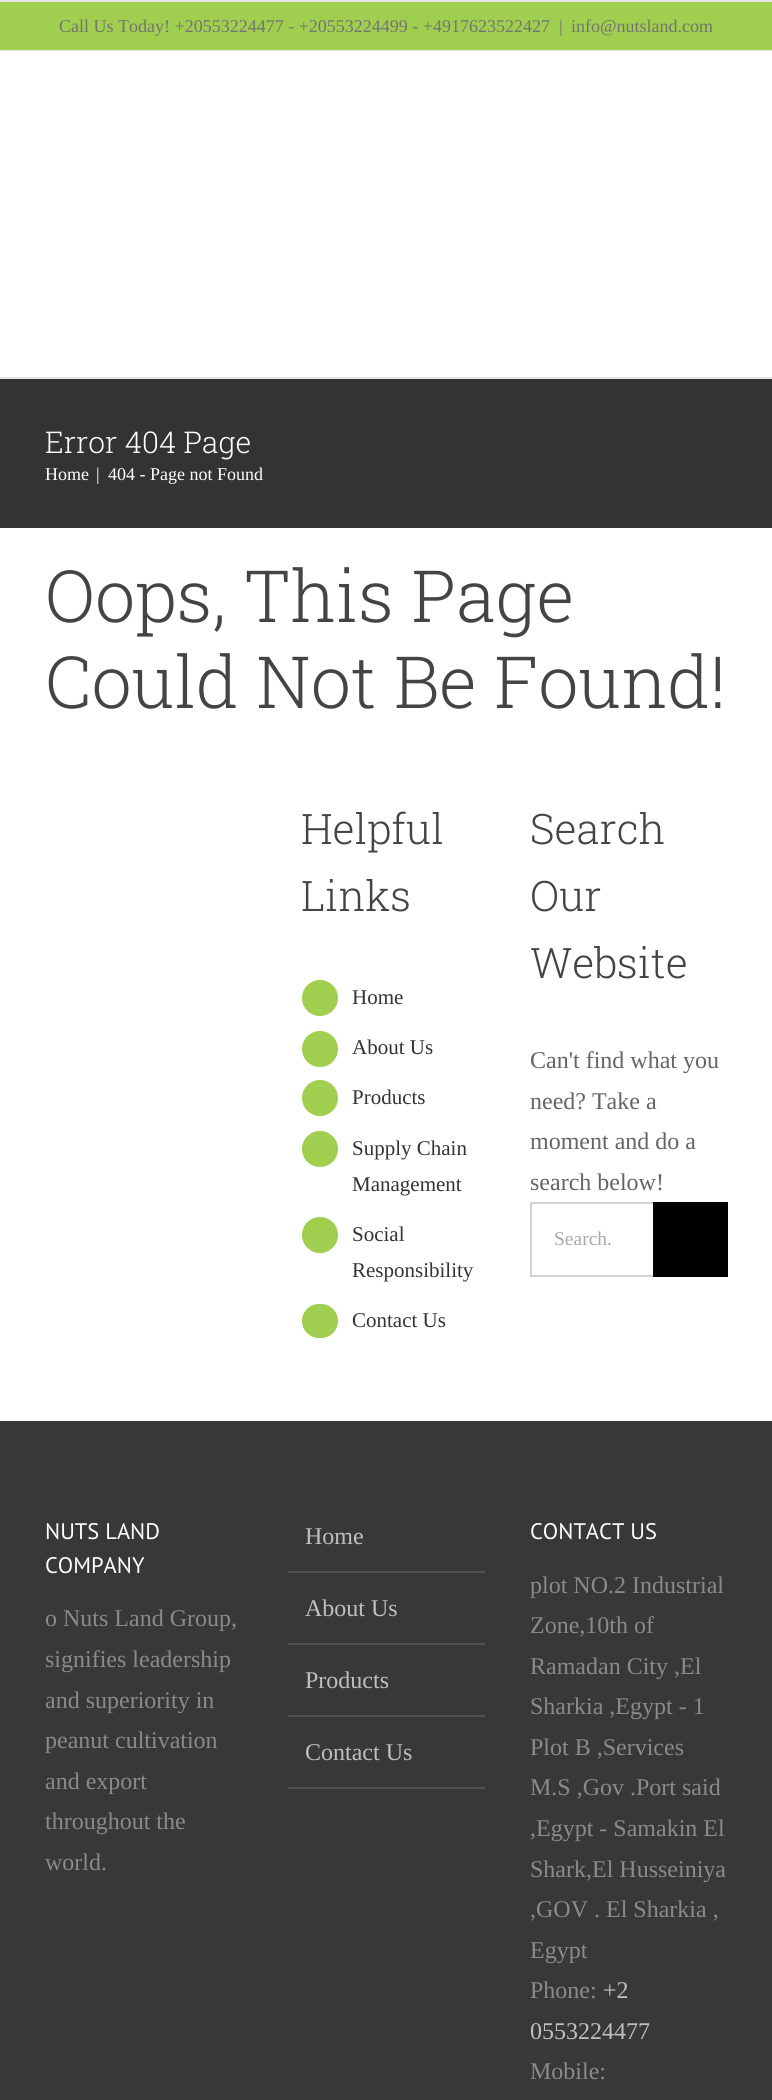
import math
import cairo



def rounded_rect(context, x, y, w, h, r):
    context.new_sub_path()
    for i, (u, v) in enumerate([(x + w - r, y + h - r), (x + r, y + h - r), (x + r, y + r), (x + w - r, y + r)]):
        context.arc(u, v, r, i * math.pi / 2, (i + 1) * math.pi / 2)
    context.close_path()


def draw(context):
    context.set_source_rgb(1, 1, 1)
    context.paint()
    context.set_source_rgb(160 / 255, 206 / 255, 78 / 255)
    context.rectangle(0, 2, 772, 48)
    context.fill()
    context.set_source_rgb(229 / 255, 229 / 255, 229 / 255)
    context.rectangle(0, 50, 772, 1)
    context.fill()
    context.rectangle(0, 0, 772, 2)
    context.fill()
    context.rectangle(0, 377, 772, 2)
    context.fill()
    context.set_source_rgb(51 / 255, 51 / 255, 51 / 255)
    context.rectangle(0, 379, 772, 149)
    context.fill()
    context.set_source_rgb(160 / 255, 206 / 255, 78 / 255)
    context.arc(320, 998, 18, 0, 2 * math.pi)
    context.fill()
    context.arc(320, 1049, 18, 0, 2 * math.pi)
    context.fill()
    context.arc(320, 1098, 18, 0, 2 * math.pi)
    context.fill()
    context.arc(320, 1149, 18, 0, 2 * math.pi)
    context.fill()
    context.arc(320, 1235, 18, 0, 2 * math.pi)
    context.fill()
    rounded_rect(context, 302, 1304, 36, 34, 17)
    context.fill()
    context.set_source_rgb(210 / 255, 210 / 255, 210 / 255)
    context.rectangle(530, 1202, 123, 2)
    context.fill()
    context.rectangle(530, 1275, 123, 2)
    context.fill()
    context.rectangle(530, 1202, 2, 75)
    context.fill()
    context.set_source_rgb(0, 0, 0)
    context.rectangle(653, 1202, 75, 75)
    context.fill()
    context.set_source_rgb(54 / 255, 56 / 255, 57 / 255)
    context.rectangle(0, 1421, 772, 679)
    context.fill()
    context.set_source_rgb(80 / 255, 81 / 255, 82 / 255)
    context.rectangle(288, 1571, 197, 2)
    context.fill()
    context.rectangle(288, 1643, 197, 2)
    context.fill()
    context.rectangle(288, 1715, 197, 2)
    context.fill()
    context.rectangle(288, 1787, 197, 2)
    context.fill()
    context.select_font_face("Liberation Serif")
    context.set_font_size(18)
    context.set_source_rgb(116 / 255, 116 / 255, 116 / 255)
    context.move_to(59, 32)
    context.show_text("Call Us Today! +20553224477 - +20553224499 - +4917623522427")
    context.move_to(559, 32)
    context.show_text("|")
    context.move_to(571, 32)
    context.show_text("info@nutsland.com")
    context.select_font_face("Roboto Slab Light")
    context.set_font_size(30)
    context.set_source_rgb(1, 1, 1)
    context.move_to(45, 453)
    context.show_text("Error 404 Page")
    context.select_font_face("Liberation Serif")
    context.set_font_size(18)
    context.move_to(45, 480)
    context.show_text("Home")
    context.move_to(96, 480)
    context.show_text("|")
    context.move_to(108, 480)
    context.show_text("404 - Page not Found")
    context.select_font_face("Roboto Slab Light")
    context.set_font_size(72)
    context.set_source_rgb(68 / 255, 68 / 255, 68 / 255)
    context.move_to(45, 622)
    context.show_text("Oops, This Page")
    context.move_to(45, 708)
    context.show_text("Could Not Be Found!")
    context.set_font_size(42)
    context.move_to(301, 844)
    context.show_text("Helpful")
    context.move_to(301, 911)
    context.show_text("Links")
    context.select_font_face("Liberation Serif")
    context.set_font_size(21)
    context.set_source_rgb(51 / 255, 51 / 255, 51 / 255)
    context.move_to(352, 1004)
    context.show_text("Home")
    context.move_to(352, 1054)
    context.show_text("About Us")
    context.move_to(352, 1104)
    context.show_text("Products")
    context.move_to(352, 1155)
    context.show_text("Supply Chain")
    context.move_to(352, 1191)
    context.show_text("Management")
    context.move_to(352, 1241)
    context.show_text("Social")
    context.move_to(352, 1277)
    context.show_text("Responsibility")
    context.move_to(352, 1327)
    context.show_text("Contact Us")
    context.select_font_face("Roboto Slab Light")
    context.set_font_size(42)
    context.set_source_rgb(68 / 255, 68 / 255, 68 / 255)
    context.move_to(530, 844)
    context.show_text("Search")
    context.move_to(530, 911)
    context.show_text("Our")
    context.move_to(530, 978)
    context.show_text("Website")
    context.select_font_face("Liberation Serif")
    context.set_font_size(24)
    context.set_source_rgb(100 / 255, 100 / 255, 100 / 255)
    context.move_to(530, 1068)
    context.show_text("Can't find what you")
    context.move_to(530, 1109)
    context.show_text("need? Take a")
    context.move_to(530, 1149)
    context.show_text("moment and do a")
    context.move_to(530, 1190)
    context.show_text("search below!")
    context.set_font_size(19.5)
    context.set_source_rgb(170 / 255, 169 / 255, 169 / 255)
    context.move_to(554, 1245)
    context.show_text("Search.")
    context.select_font_face("PT Sans")
    context.set_font_size(22.5)
    context.set_source_rgb(1, 1, 1)
    context.move_to(45, 1539)
    context.show_text("NUTS LAND")
    context.move_to(45, 1573)
    context.show_text("COMPANY")
    context.select_font_face("Liberation Serif")
    context.set_font_size(24)
    context.set_source_rgb(140 / 255, 137 / 255, 137 / 255)
    context.move_to(45, 1626)
    context.show_text("o Nuts Land Group,")
    context.move_to(45, 1667)
    context.show_text("signifies leadership")
    context.move_to(45, 1708)
    context.show_text("and superiority in")
    context.move_to(45, 1748)
    context.show_text("peanut cultivation")
    context.move_to(45, 1789)
    context.show_text("and export")
    context.move_to(45, 1829)
    context.show_text("throughout the")
    context.move_to(45, 1870)
    context.show_text("world.")
    context.set_source_rgb(191 / 255, 191 / 255, 191 / 255)
    context.move_to(305, 1544)
    context.show_text("Home")
    context.move_to(305, 1616)
    context.show_text("About Us")
    context.move_to(305, 1688)
    context.show_text("Products")
    context.move_to(305, 1760)
    context.show_text("Contact Us")
    context.select_font_face("PT Sans")
    context.set_font_size(22.5)
    context.set_source_rgb(1, 1, 1)
    context.move_to(530, 1539)
    context.show_text("CONTACT US")
    context.select_font_face("Liberation Serif")
    context.set_font_size(24)
    context.set_source_rgb(140 / 255, 137 / 255, 137 / 255)
    context.move_to(530, 1593)
    context.show_text("plot NO.2 Industrial")
    context.move_to(530, 1633)
    context.show_text("Zone,10th of")
    context.move_to(530, 1674)
    context.show_text("Ramadan City ,El")
    context.move_to(530, 1714)
    context.show_text("Sharkia ,Egypt - 1")
    context.move_to(530, 1755)
    context.show_text("Plot B ,Services")
    context.move_to(530, 1795)
    context.show_text("M.S ,Gov .Port said")
    context.move_to(530, 1836)
    context.show_text(",Egypt - Samakin El")
    context.move_to(530, 1877)
    context.show_text("Shark,El Husseiniya")
    context.move_to(530, 1917)
    context.show_text(",GOV . El Sharkia ,")
    context.move_to(530, 1958)
    context.show_text("Egypt")
    context.move_to(530, 1998)
    context.show_text("Phone:")
    context.set_source_rgb(191 / 255, 191 / 255, 191 / 255)
    context.move_to(603, 1998)
    context.show_text("+2")
    context.move_to(530, 2039)
    context.show_text("0553224477")
    context.set_source_rgb(140 / 255, 137 / 255, 137 / 255)
    context.move_to(530, 2079)
    context.show_text("Mobile:")


surface = cairo.ImageSurface(cairo.Format.RGB24, 772, 2100)
context = cairo.Context(surface)
options = cairo.FontOptions()
options.set_hint_metrics(cairo.HintMetrics.OFF)
options.set_hint_style(cairo.HintStyle.NONE)
context.set_font_options(options)
context.set_miter_limit(4)
draw(context)
surface.write_to_png("out.png")
